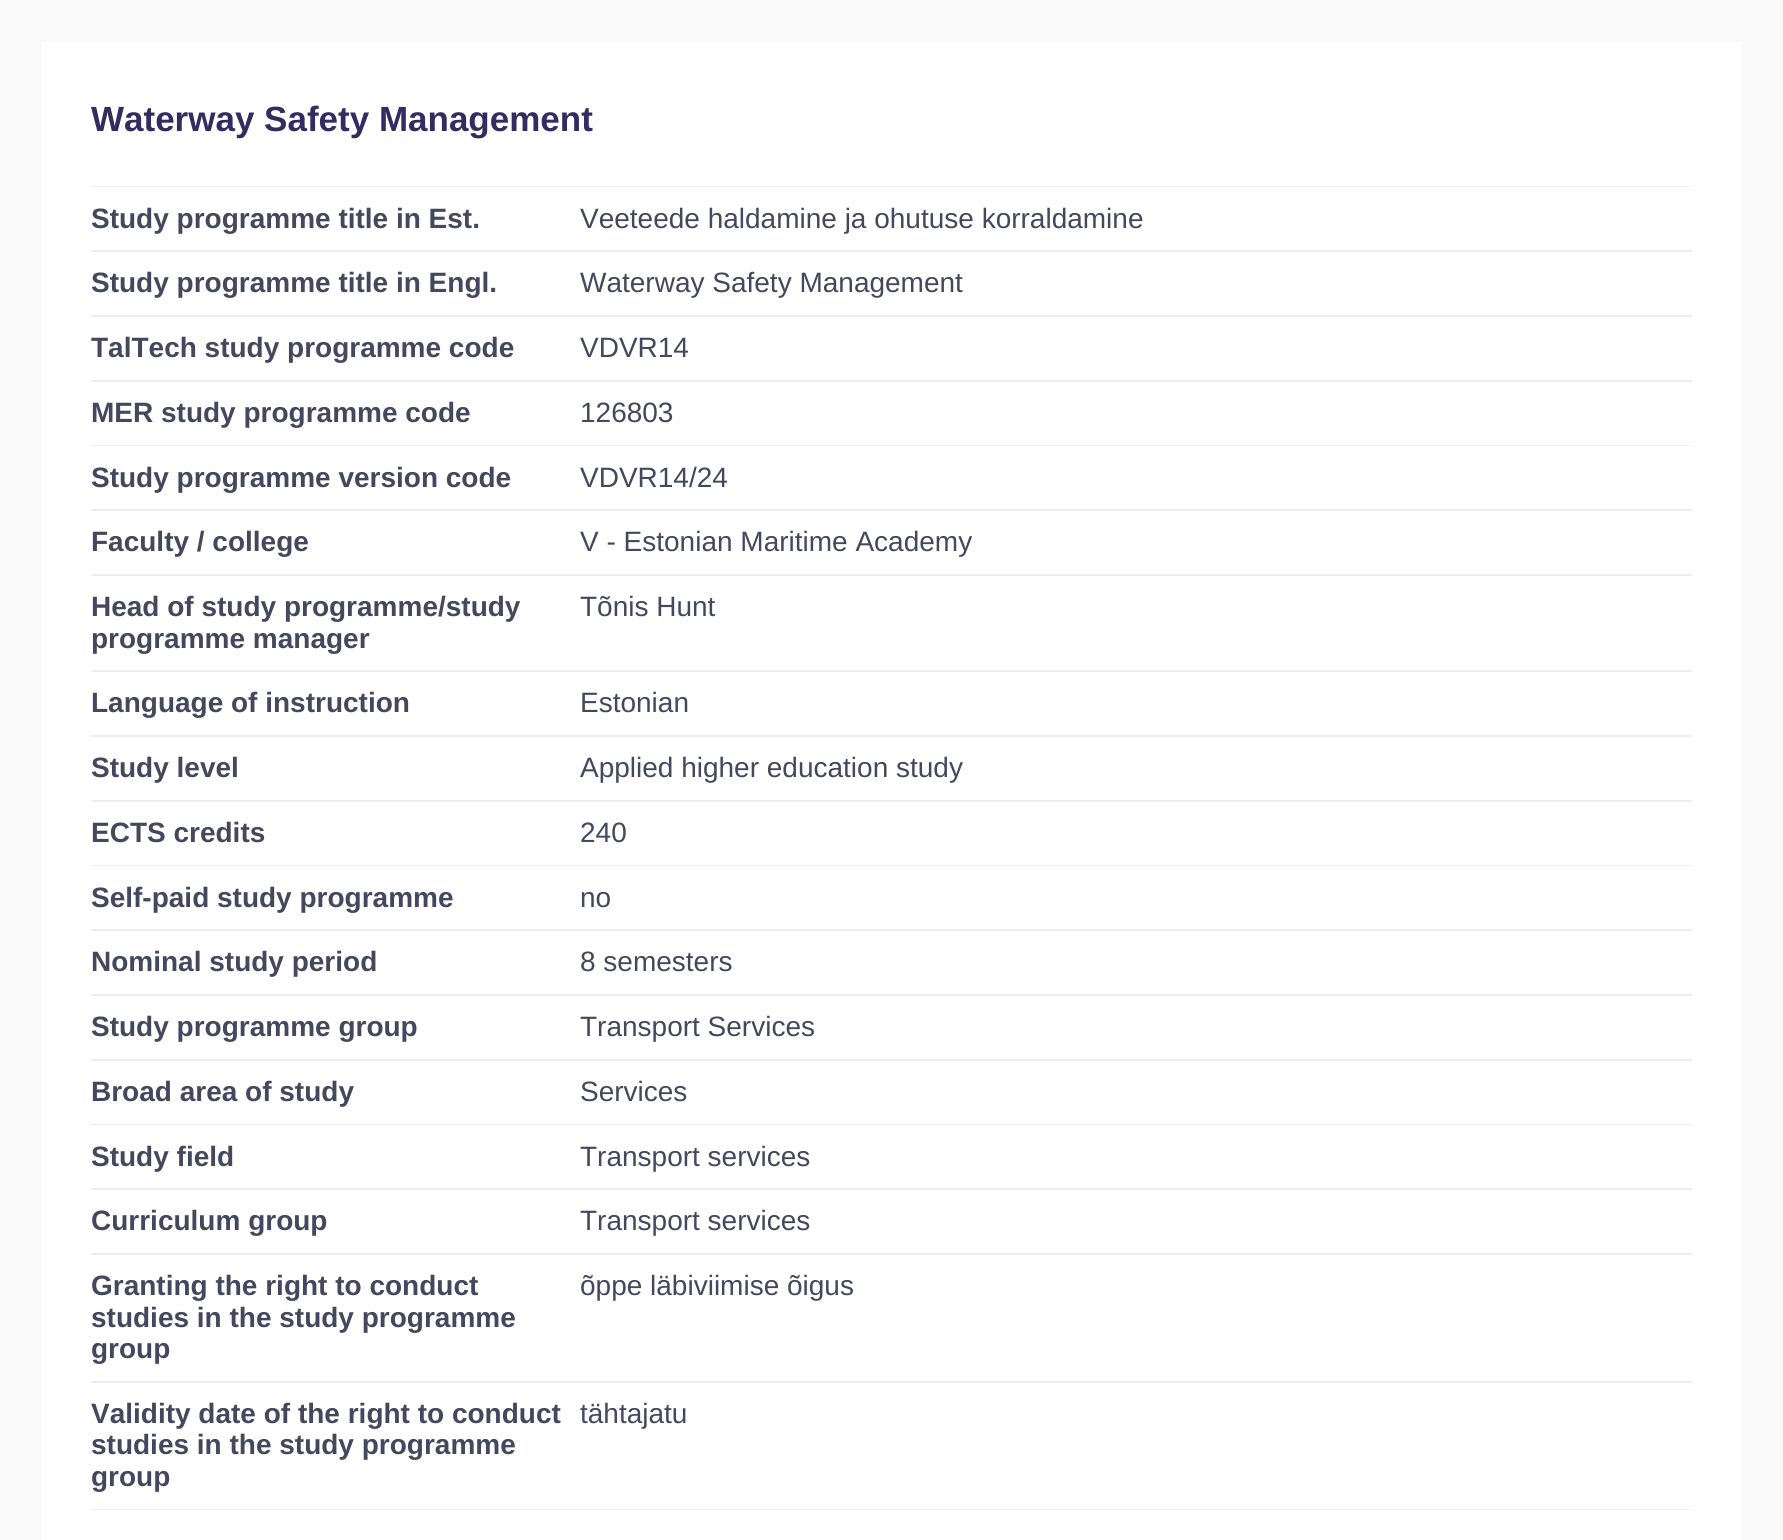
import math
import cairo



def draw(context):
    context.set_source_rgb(251 / 255, 250 / 255, 251 / 255)
    context.paint()
    context.set_source_rgb(1, 1, 1)
    context.rectangle(42, 42, 1699, 1498)
    context.fill()
    context.set_source_rgb(237 / 255, 237 / 255, 242 / 255)
    context.rectangle(91, 186, 1601, 1)
    context.fill()
    context.rectangle(91, 250, 1601, 2)
    context.fill()
    context.rectangle(91, 315, 1601, 2)
    context.fill()
    context.rectangle(91, 380, 1601, 2)
    context.fill()
    context.rectangle(91, 445, 1601, 1)
    context.fill()
    context.rectangle(91, 509, 1601, 2)
    context.fill()
    context.rectangle(91, 574, 1601, 2)
    context.fill()
    context.rectangle(91, 670, 1601, 2)
    context.fill()
    context.rectangle(91, 735, 1601, 2)
    context.fill()
    context.rectangle(91, 800, 1601, 2)
    context.fill()
    context.rectangle(91, 865, 1601, 1)
    context.fill()
    context.rectangle(91, 929, 1601, 2)
    context.fill()
    context.rectangle(91, 994, 1601, 2)
    context.fill()
    context.rectangle(91, 1059, 1601, 2)
    context.fill()
    context.rectangle(91, 1124, 1601, 1)
    context.fill()
    context.rectangle(91, 1188, 1601, 2)
    context.fill()
    context.rectangle(91, 1253, 1601, 2)
    context.fill()
    context.rectangle(91, 1381, 1601, 2)
    context.fill()
    context.rectangle(91, 1509, 1601, 1)
    context.fill()
    context.select_font_face("Liberation Sans", cairo.FontSlant.NORMAL, cairo.FontWeight.BOLD)
    context.set_font_size(35)
    context.set_source_rgb(52 / 255, 43 / 255, 96 / 255)
    context.move_to(91, 131)
    context.show_text("Waterway Safety Management")
    context.set_font_size(28)
    context.set_source_rgb(69 / 255, 71 / 255, 94 / 255)
    context.move_to(91, 228)
    context.show_text("Study programme title in Est.")
    context.select_font_face("Liberation Sans")
    context.move_to(580, 228)
    context.show_text("Veeteede haldamine ja ohutuse korraldamine")
    context.select_font_face("Liberation Sans", cairo.FontSlant.NORMAL, cairo.FontWeight.BOLD)
    context.move_to(91, 292)
    context.show_text("Study programme title in Engl.")
    context.select_font_face("Liberation Sans")
    context.move_to(580, 292)
    context.show_text("Waterway Safety Management")
    context.select_font_face("Liberation Sans", cairo.FontSlant.NORMAL, cairo.FontWeight.BOLD)
    context.move_to(91, 357)
    context.show_text("TalTech study programme code")
    context.select_font_face("Liberation Sans")
    context.move_to(580, 357)
    context.show_text("VDVR14")
    context.select_font_face("Liberation Sans", cairo.FontSlant.NORMAL, cairo.FontWeight.BOLD)
    context.move_to(91, 422)
    context.show_text("MER study programme code")
    context.select_font_face("Liberation Sans")
    context.move_to(580, 422)
    context.show_text("126803")
    context.select_font_face("Liberation Sans", cairo.FontSlant.NORMAL, cairo.FontWeight.BOLD)
    context.move_to(91, 487)
    context.show_text("Study programme version code")
    context.select_font_face("Liberation Sans")
    context.move_to(580, 487)
    context.show_text("VDVR14/24")
    context.select_font_face("Liberation Sans", cairo.FontSlant.NORMAL, cairo.FontWeight.BOLD)
    context.move_to(91, 551)
    context.show_text("Faculty / college")
    context.select_font_face("Liberation Sans")
    context.move_to(580, 551)
    context.show_text("V - Estonian Maritime Academy")
    context.select_font_face("Liberation Sans", cairo.FontSlant.NORMAL, cairo.FontWeight.BOLD)
    context.move_to(91, 616)
    context.show_text("Head of study programme/study")
    context.move_to(91, 648)
    context.show_text("programme manager")
    context.select_font_face("Liberation Sans")
    context.move_to(580, 616)
    context.show_text("Tõnis Hunt")
    context.select_font_face("Liberation Sans", cairo.FontSlant.NORMAL, cairo.FontWeight.BOLD)
    context.move_to(91, 712)
    context.show_text("Language of instruction")
    context.select_font_face("Liberation Sans")
    context.move_to(580, 712)
    context.show_text("Estonian")
    context.select_font_face("Liberation Sans", cairo.FontSlant.NORMAL, cairo.FontWeight.BOLD)
    context.move_to(91, 777)
    context.show_text("Study level")
    context.select_font_face("Liberation Sans")
    context.move_to(580, 777)
    context.show_text("Applied higher education study")
    context.select_font_face("Liberation Sans", cairo.FontSlant.NORMAL, cairo.FontWeight.BOLD)
    context.move_to(91, 842)
    context.show_text("ECTS credits")
    context.select_font_face("Liberation Sans")
    context.move_to(580, 842)
    context.show_text("240")
    context.select_font_face("Liberation Sans", cairo.FontSlant.NORMAL, cairo.FontWeight.BOLD)
    context.move_to(91, 907)
    context.show_text("Self-paid study programme")
    context.select_font_face("Liberation Sans")
    context.move_to(580, 907)
    context.show_text("no")
    context.select_font_face("Liberation Sans", cairo.FontSlant.NORMAL, cairo.FontWeight.BOLD)
    context.move_to(91, 971)
    context.show_text("Nominal study period")
    context.select_font_face("Liberation Sans")
    context.move_to(580, 971)
    context.show_text("8 semesters")
    context.select_font_face("Liberation Sans", cairo.FontSlant.NORMAL, cairo.FontWeight.BOLD)
    context.move_to(91, 1036)
    context.show_text("Study programme group")
    context.select_font_face("Liberation Sans")
    context.move_to(580, 1036)
    context.show_text("Transport Services")
    context.select_font_face("Liberation Sans", cairo.FontSlant.NORMAL, cairo.FontWeight.BOLD)
    context.move_to(91, 1101)
    context.show_text("Broad area of study")
    context.select_font_face("Liberation Sans")
    context.move_to(580, 1101)
    context.show_text("Services")
    context.select_font_face("Liberation Sans", cairo.FontSlant.NORMAL, cairo.FontWeight.BOLD)
    context.move_to(91, 1166)
    context.show_text("Study field")
    context.select_font_face("Liberation Sans")
    context.move_to(580, 1166)
    context.show_text("Transport services")
    context.select_font_face("Liberation Sans", cairo.FontSlant.NORMAL, cairo.FontWeight.BOLD)
    context.move_to(91, 1230)
    context.show_text("Curriculum group")
    context.select_font_face("Liberation Sans")
    context.move_to(580, 1230)
    context.show_text("Transport services")
    context.select_font_face("Liberation Sans", cairo.FontSlant.NORMAL, cairo.FontWeight.BOLD)
    context.move_to(91, 1295)
    context.show_text("Granting the right to conduct")
    context.move_to(91, 1327)
    context.show_text("studies in the study programme")
    context.move_to(91, 1358)
    context.show_text("group")
    context.select_font_face("Liberation Sans")
    context.move_to(580, 1295)
    context.show_text("õppe läbiviimise õigus")
    context.select_font_face("Liberation Sans", cairo.FontSlant.NORMAL, cairo.FontWeight.BOLD)
    context.move_to(91, 1423)
    context.show_text("Validity date of the right to conduct")
    context.move_to(91, 1454)
    context.show_text("studies in the study programme")
    context.move_to(91, 1486)
    context.show_text("group")
    context.select_font_face("Liberation Sans")
    context.move_to(580, 1423)
    context.show_text("tähtajatu")


surface = cairo.ImageSurface(cairo.Format.RGB24, 1783, 1540)
context = cairo.Context(surface)
options = cairo.FontOptions()
options.set_hint_metrics(cairo.HintMetrics.OFF)
options.set_hint_style(cairo.HintStyle.NONE)
context.set_font_options(options)
context.set_miter_limit(4)
draw(context)
surface.write_to_png("out.png")
